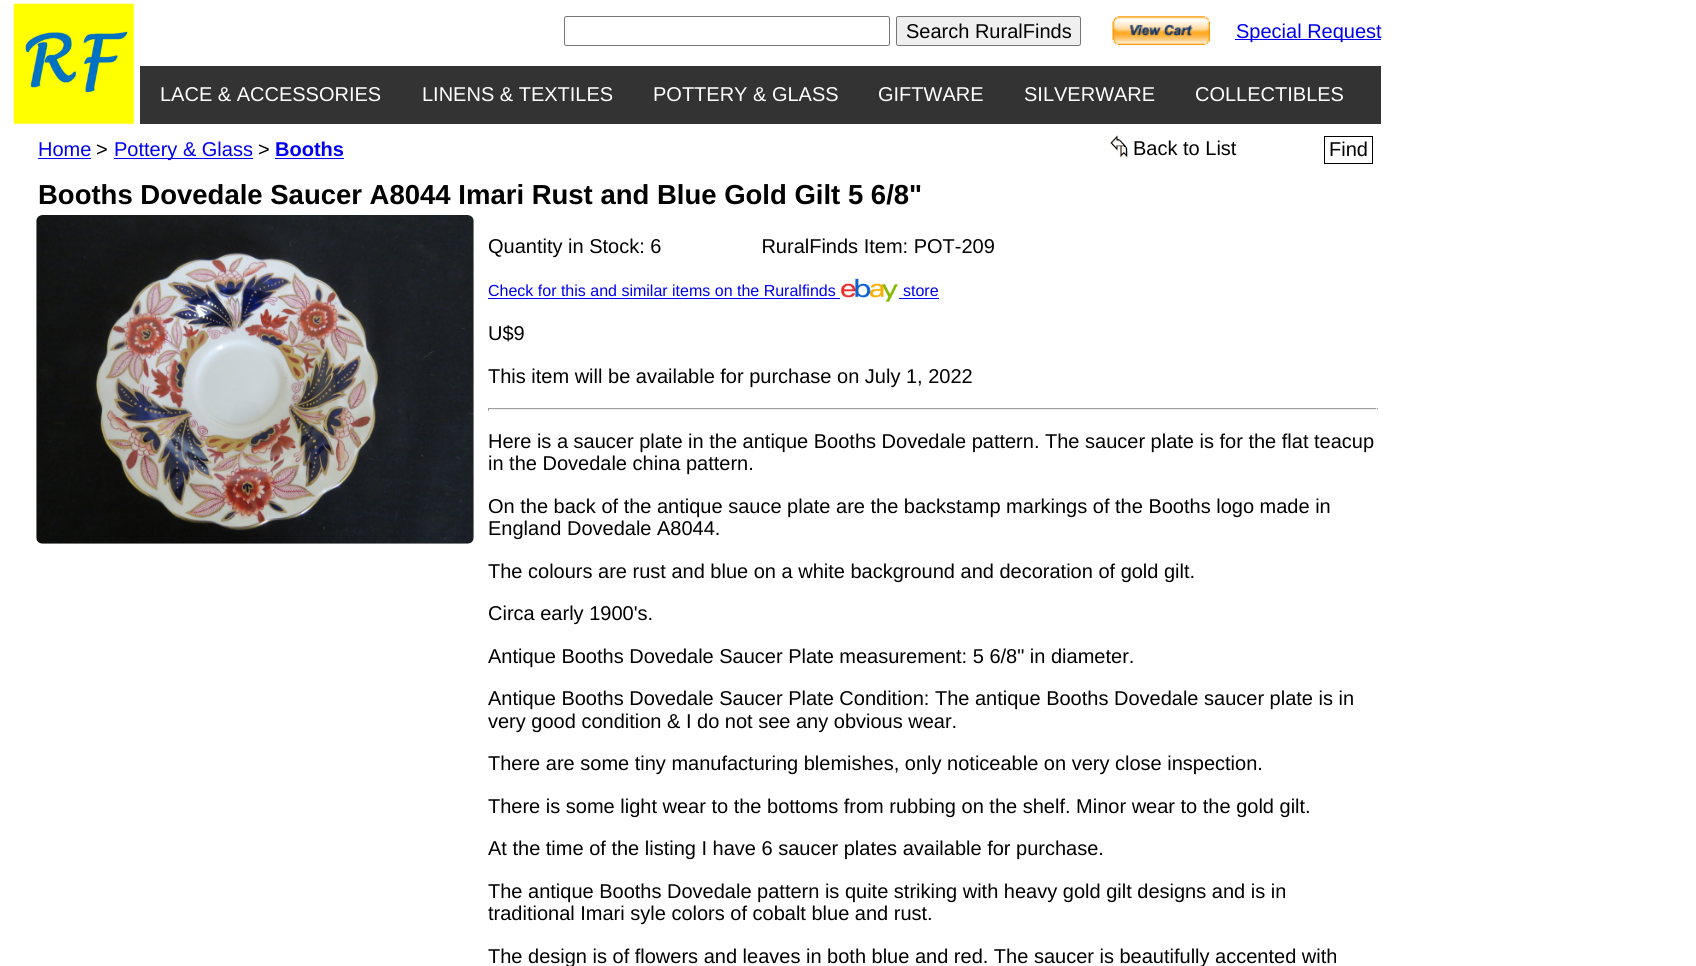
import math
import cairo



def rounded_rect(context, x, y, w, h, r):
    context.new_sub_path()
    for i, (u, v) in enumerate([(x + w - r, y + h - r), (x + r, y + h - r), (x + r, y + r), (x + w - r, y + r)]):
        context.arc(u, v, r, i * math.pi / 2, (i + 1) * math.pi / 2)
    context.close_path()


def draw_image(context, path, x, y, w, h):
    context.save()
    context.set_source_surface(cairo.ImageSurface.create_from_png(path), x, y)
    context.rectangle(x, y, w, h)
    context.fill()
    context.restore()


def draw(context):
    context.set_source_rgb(1, 1, 1)
    context.paint()
    draw_image(context, "images/1.png", 13, 3, 121, 121)
    rounded_rect(context, 564.5, 16.5, 325, 29, 2)
    context.set_source_rgb(118 / 255, 118 / 255, 118 / 255)
    context.set_line_width(1)
    context.stroke()
    context.set_source_rgb(239 / 255, 239 / 255, 239 / 255)
    rounded_rect(context, 896.5, 16.5, 184, 29, 2)
    context.fill_preserve()
    context.set_source_rgb(118 / 255, 118 / 255, 118 / 255)
    context.stroke()
    draw_image(context, "images/2.png", 1112, 16, 98, 29)
    context.set_source_rgb(0, 0, 238 / 255)
    context.rectangle(1235, 39, 146, 1)
    context.fill()
    context.set_source_rgb(51 / 255, 51 / 255, 51 / 255)
    context.rectangle(140, 66, 1241, 58)
    context.fill()
    context.set_source_rgb(0, 0, 238 / 255)
    context.rectangle(38, 158, 53, 1)
    context.fill()
    context.rectangle(114, 158, 139, 1)
    context.fill()
    context.rectangle(275, 158, 69, 1)
    context.fill()
    draw_image(context, "images/3.png", 1110, 135, 18, 23)
    context.rectangle(1324.5, 136.5, 48, 27)
    context.set_source_rgb(0, 0, 0)
    context.stroke()
    draw_image(context, "images/4.png", 36, 215, 438, 329)
    context.set_source_rgb(0, 0, 238 / 255)
    context.rectangle(488, 298, 352, 1)
    context.fill()
    draw_image(context, "images/5.png", 840, 278, 58, 24)
    context.rectangle(899, 298, 40, 1)
    context.fill()
    context.set_source_rgb(159 / 255, 159 / 255, 159 / 255)
    context.rectangle(488, 408, 890, 1)
    context.fill()
    context.set_source_rgb(238 / 255, 238 / 255, 238 / 255)
    context.rectangle(1376, 408, 1, 3)
    context.fill()
    context.rectangle(488, 409, 890, 1)
    context.fill()
    context.set_source_rgb(159 / 255, 159 / 255, 159 / 255)
    context.rectangle(488, 408, 1, 3)
    context.fill()
    context.select_font_face("Liberation Sans")
    context.set_font_size(20)
    context.set_source_rgb(0, 0, 0)
    context.move_to(906, 38)
    context.show_text("Search RuralFinds")
    context.set_source_rgb(0, 0, 238 / 255)
    context.move_to(1236, 38)
    context.show_text("Special Request")
    context.set_source_rgb(1, 1, 1)
    context.move_to(160, 101)
    context.show_text("LACE & ACCESSORIES")
    context.move_to(422, 101)
    context.show_text("LINENS & TEXTILES")
    context.move_to(653, 101)
    context.show_text("POTTERY & GLASS")
    context.move_to(878, 101)
    context.show_text("GIFTWARE")
    context.move_to(1024, 101)
    context.show_text("SILVERWARE")
    context.move_to(1195, 101)
    context.show_text("COLLECTIBLES")
    context.set_source_rgb(0, 0, 238 / 255)
    context.move_to(38, 156)
    context.show_text("Home")
    context.set_source_rgb(0, 0, 0)
    context.move_to(96, 156)
    context.show_text(">")
    context.set_source_rgb(0, 0, 238 / 255)
    context.move_to(114, 156)
    context.show_text("Pottery & Glass")
    context.set_source_rgb(0, 0, 0)
    context.move_to(258, 156)
    context.show_text(">")
    context.select_font_face("Liberation Sans", cairo.FontSlant.NORMAL, cairo.FontWeight.BOLD)
    context.set_source_rgb(0, 0, 238 / 255)
    context.move_to(275, 156)
    context.show_text("Booths")
    context.select_font_face("Liberation Sans")
    context.set_source_rgb(0, 0, 0)
    context.move_to(1133, 155)
    context.show_text("Back to List")
    context.move_to(1329, 156)
    context.show_text("Find")
    context.select_font_face("Liberation Sans", cairo.FontSlant.NORMAL, cairo.FontWeight.BOLD)
    context.set_font_size(27.5)
    context.move_to(38, 204)
    context.show_text("Booths Dovedale Saucer A8044 Imari Rust and Blue Gold Gilt 5 6/8\"")
    context.select_font_face("Liberation Sans")
    context.set_font_size(20)
    context.move_to(488, 253)
    context.show_text("Quantity in Stock: 6     RuralFinds Item: POT-209")
    context.set_font_size(16)
    context.set_source_rgb(0, 0, 238 / 255)
    context.move_to(488, 296)
    context.show_text("Check for this and similar items on the Ruralfinds")
    context.move_to(903, 296)
    context.show_text("store")
    context.set_font_size(20)
    context.set_source_rgb(0, 0, 0)
    context.move_to(488, 340)
    context.show_text("U$9")
    context.move_to(488, 383)
    context.show_text("This item will be available for purchase on July 1, 2022")
    context.move_to(488, 448)
    context.show_text("Here is a saucer plate in the antique Booths Dovedale pattern. The saucer plate is for the flat teacup")
    context.move_to(488, 470)
    context.show_text("in the Dovedale china pattern.")
    context.move_to(488, 513)
    context.show_text("On the back of the antique sauce plate are the backstamp markings of the Booths logo made in")
    context.move_to(488, 535)
    context.show_text("England Dovedale A8044.")
    context.move_to(488, 578)
    context.show_text("The colours are rust and blue on a white background and decoration of gold gilt.")
    context.move_to(488, 620)
    context.show_text("Circa early 1900's.")
    context.move_to(488, 663)
    context.show_text("Antique Booths Dovedale Saucer Plate measurement: 5 6/8\" in diameter.")
    context.move_to(488, 705)
    context.show_text("Antique Booths Dovedale Saucer Plate Condition: The antique Booths Dovedale saucer plate is in")
    context.move_to(488, 728)
    context.show_text("very good condition & I do not see any obvious wear.")
    context.move_to(488, 770)
    context.show_text("There are some tiny manufacturing blemishes, only noticeable on very close inspection.")
    context.move_to(488, 813)
    context.show_text("There is some light wear to the bottoms from rubbing on the shelf. Minor wear to the gold gilt.")
    context.move_to(488, 855)
    context.show_text("At the time of the listing I have 6 saucer plates available for purchase.")
    context.move_to(488, 898)
    context.show_text("The antique Booths Dovedale pattern is quite striking with heavy gold gilt designs and is in")
    context.move_to(488, 920)
    context.show_text("traditional Imari syle colors of cobalt blue and rust.")
    context.move_to(488, 963)
    context.show_text("The design is of flowers and leaves in both blue and red. The saucer is beautifully accented with")


surface = cairo.ImageSurface(cairo.Format.RGB24, 1696, 966)
context = cairo.Context(surface)
options = cairo.FontOptions()
options.set_hint_metrics(cairo.HintMetrics.OFF)
options.set_hint_style(cairo.HintStyle.NONE)
context.set_font_options(options)
context.set_miter_limit(4)
draw(context)
surface.write_to_png("out.png")
